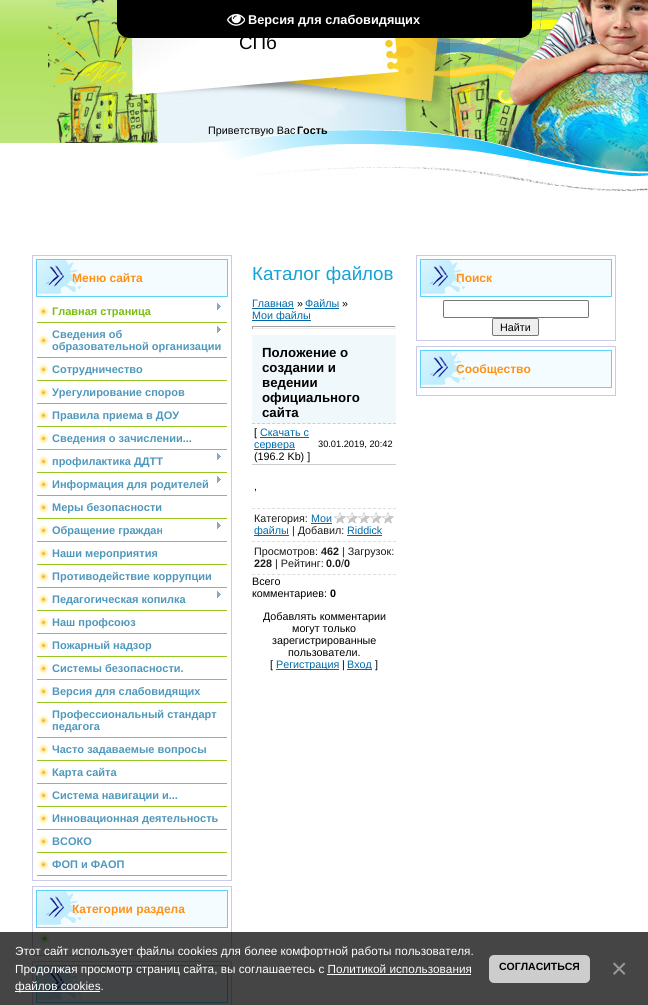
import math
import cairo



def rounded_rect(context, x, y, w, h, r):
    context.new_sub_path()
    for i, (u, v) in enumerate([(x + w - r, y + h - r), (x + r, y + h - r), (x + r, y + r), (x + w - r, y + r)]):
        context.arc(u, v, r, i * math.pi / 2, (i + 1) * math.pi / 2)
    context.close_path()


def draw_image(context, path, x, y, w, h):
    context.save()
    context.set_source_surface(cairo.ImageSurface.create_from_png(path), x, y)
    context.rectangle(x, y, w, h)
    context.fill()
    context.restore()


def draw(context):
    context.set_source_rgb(1, 1, 1)
    context.paint()
    draw_image(context, "images/3.png", 47, 0, 601, 191)
    context.set_source_rgb(0, 0, 0)
    context.new_path()
    context.move_to(117, 0)
    context.line_to(532, 0)
    context.line_to(532, 26)
    context.curve_to(532, 32.5, 526.5, 38, 520, 38)
    context.line_to(129, 38)
    context.curve_to(122.5, 38, 117, 32.5, 117, 26)
    context.close_path()
    context.fill()
    draw_image(context, "images/1.png", 227, 13, 18, 13)
    draw_image(context, "images/2.png", 0, 0, 47, 143)
    context.rectangle(32.5, 255.5, 199, 625)
    context.set_source_rgb(202 / 255, 202 / 255, 230 / 255)
    context.set_line_width(1)
    context.stroke()
    context.set_source_rgb(245 / 255, 252 / 255, 1)
    context.rectangle(37, 260, 190, 36)
    context.fill()
    draw_image(context, "images/4.png", 37, 260, 44, 34)
    context.rectangle(36.5, 259.5, 191, 37)
    context.set_source_rgb(91 / 255, 209 / 255, 252 / 255)
    context.stroke()
    draw_image(context, "images/5.png", 37, 305, 11, 12)
    context.set_source_rgb(151 / 255, 200 / 255, 33 / 255)
    context.rectangle(37, 322, 190, 1)
    context.fill()
    draw_image(context, "images/6.png", 217, 303, 4, 7)
    draw_image(context, "images/5.png", 37, 334, 11, 12)
    context.rectangle(37, 357, 190, 1)
    context.fill()
    draw_image(context, "images/6.png", 217, 326, 4, 7)
    draw_image(context, "images/5.png", 37, 363, 11, 12)
    context.rectangle(37, 380, 190, 1)
    context.fill()
    draw_image(context, "images/5.png", 37, 386, 11, 12)
    context.rectangle(37, 403, 190, 1)
    context.fill()
    draw_image(context, "images/5.png", 37, 409, 11, 12)
    context.rectangle(37, 426, 190, 1)
    context.fill()
    draw_image(context, "images/5.png", 37, 432, 11, 12)
    context.rectangle(37, 449, 190, 1)
    context.fill()
    draw_image(context, "images/5.png", 37, 455, 11, 12)
    context.rectangle(37, 472, 190, 1)
    context.fill()
    draw_image(context, "images/6.png", 217, 453, 4, 7)
    draw_image(context, "images/5.png", 37, 478, 11, 12)
    context.rectangle(37, 495, 190, 1)
    context.fill()
    draw_image(context, "images/6.png", 217, 476, 4, 7)
    draw_image(context, "images/5.png", 37, 501, 11, 12)
    context.rectangle(37, 518, 190, 1)
    context.fill()
    draw_image(context, "images/5.png", 37, 524, 11, 12)
    context.rectangle(37, 541, 190, 1)
    context.fill()
    draw_image(context, "images/6.png", 217, 522, 4, 7)
    draw_image(context, "images/5.png", 37, 547, 11, 12)
    context.rectangle(37, 564, 190, 1)
    context.fill()
    draw_image(context, "images/5.png", 37, 570, 11, 12)
    context.rectangle(37, 587, 190, 1)
    context.fill()
    draw_image(context, "images/5.png", 37, 593, 11, 12)
    context.rectangle(37, 610, 190, 1)
    context.fill()
    draw_image(context, "images/6.png", 217, 591, 4, 7)
    draw_image(context, "images/5.png", 37, 616, 11, 12)
    context.rectangle(37, 633, 190, 1)
    context.fill()
    draw_image(context, "images/5.png", 37, 639, 11, 12)
    context.rectangle(37, 656, 190, 1)
    context.fill()
    draw_image(context, "images/5.png", 37, 662, 11, 12)
    context.rectangle(37, 679, 190, 1)
    context.fill()
    draw_image(context, "images/5.png", 37, 685, 11, 12)
    context.rectangle(37, 702, 190, 1)
    context.fill()
    draw_image(context, "images/5.png", 37, 714, 11, 12)
    context.rectangle(37, 737, 190, 1)
    context.fill()
    draw_image(context, "images/5.png", 37, 743, 11, 12)
    context.rectangle(37, 760, 190, 1)
    context.fill()
    draw_image(context, "images/5.png", 37, 766, 11, 12)
    context.rectangle(37, 783, 190, 1)
    context.fill()
    draw_image(context, "images/5.png", 37, 789, 11, 12)
    context.rectangle(37, 806, 190, 1)
    context.fill()
    draw_image(context, "images/5.png", 37, 812, 11, 12)
    context.rectangle(37, 829, 190, 1)
    context.fill()
    draw_image(context, "images/5.png", 37, 835, 11, 12)
    context.rectangle(37, 852, 190, 1)
    context.fill()
    draw_image(context, "images/5.png", 37, 858, 11, 12)
    context.rectangle(37, 875, 190, 1)
    context.fill()
    context.rectangle(32.5, 886.5, 199, 69)
    context.set_source_rgb(202 / 255, 202 / 255, 230 / 255)
    context.stroke()
    context.set_source_rgb(245 / 255, 252 / 255, 1)
    context.rectangle(37, 891, 190, 36)
    context.fill()
    draw_image(context, "images/4.png", 37, 891, 44, 34)
    context.rectangle(36.5, 890.5, 191, 37)
    context.set_source_rgb(91 / 255, 209 / 255, 252 / 255)
    context.stroke()
    draw_image(context, "images/7.png", 38, 932, 12, 12)
    context.rectangle(32.5, 961.5, 199, 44)
    context.set_source_rgb(202 / 255, 202 / 255, 230 / 255)
    context.stroke()
    context.set_source_rgb(245 / 255, 252 / 255, 1)
    context.rectangle(37, 966, 190, 36)
    context.fill()
    draw_image(context, "images/4.png", 37, 966, 44, 34)
    context.rectangle(36.5, 965.5, 191, 37)
    context.set_source_rgb(91 / 255, 209 / 255, 252 / 255)
    context.stroke()
    context.set_source_rgb(0, 105 / 255, 169 / 255)
    context.rectangle(252, 308, 42, 1)
    context.fill()
    context.rectangle(305, 308, 34, 1)
    context.fill()
    context.rectangle(252, 320, 59, 1)
    context.fill()
    context.set_source_rgb(159 / 255, 159 / 255, 159 / 255)
    context.rectangle(252, 326, 144, 1)
    context.fill()
    context.set_source_rgb(238 / 255, 238 / 255, 238 / 255)
    context.rectangle(395, 326, 1, 3)
    context.fill()
    context.rectangle(252, 328, 144, 1)
    context.fill()
    context.set_source_rgb(159 / 255, 159 / 255, 159 / 255)
    context.rectangle(252, 326, 1, 3)
    context.fill()
    context.set_source_rgb(241 / 255, 248 / 255, 251 / 255)
    context.rectangle(252, 335, 144, 89)
    context.fill()
    context.new_path()
    context.move_to(252, 423.5)
    context.line_to(396, 423.5)
    context.set_source_rgb(203 / 255, 203 / 255, 230 / 255)
    context.set_dash([3, 2.04])
    context.stroke()
    context.set_source_rgb(0, 105 / 255, 169 / 255)
    context.rectangle(260, 437, 49, 1)
    context.fill()
    context.rectangle(254, 449, 41, 1)
    context.fill()
    context.set_source_rgb(204 / 255, 204 / 255, 204 / 255)
    context.rectangle(252, 464, 144, 1)
    context.fill()
    context.new_path()
    context.move_to(252, 508.5)
    context.line_to(396, 508.5)
    context.set_source_rgb(221 / 255, 221 / 255, 221 / 255)
    context.stroke()
    context.new_path()
    context.move_to(252, 541.5)
    context.line_to(396, 541.5)
    context.stroke()
    context.set_source_rgb(0, 105 / 255, 169 / 255)
    context.rectangle(311, 523, 21, 1)
    context.fill()
    draw_image(context, "images/8.png", 334, 512, 60, 12)
    context.rectangle(254, 535, 35, 1)
    context.fill()
    context.rectangle(347, 535, 35, 1)
    context.fill()
    context.new_path()
    context.move_to(252, 574.5)
    context.line_to(396, 574.5)
    context.set_source_rgb(221 / 255, 221 / 255, 221 / 255)
    context.stroke()
    context.set_source_rgb(0, 105 / 255, 169 / 255)
    context.rectangle(276, 669, 63, 1)
    context.fill()
    context.rectangle(347, 669, 25, 1)
    context.fill()
    context.rectangle(416.5, 255.5, 199, 85)
    context.set_source_rgb(202 / 255, 202 / 255, 230 / 255)
    context.set_dash([])
    context.stroke()
    context.set_source_rgb(245 / 255, 252 / 255, 1)
    context.rectangle(421, 260, 190, 36)
    context.fill()
    draw_image(context, "images/4.png", 421, 260, 44, 34)
    context.rectangle(420.5, 259.5, 191, 37)
    context.set_source_rgb(91 / 255, 209 / 255, 252 / 255)
    context.stroke()
    rounded_rect(context, 443.5, 300.5, 145, 17, 1.5)
    context.set_source_rgb(118 / 255, 118 / 255, 118 / 255)
    context.stroke()
    context.set_source_rgb(239 / 255, 239 / 255, 239 / 255)
    rounded_rect(context, 492.5, 318.5, 46, 17, 1.5)
    context.fill_preserve()
    context.set_source_rgb(118 / 255, 118 / 255, 118 / 255)
    context.stroke()
    context.rectangle(416.5, 346.5, 199, 49)
    context.set_source_rgb(202 / 255, 202 / 255, 230 / 255)
    context.stroke()
    context.set_source_rgb(245 / 255, 252 / 255, 1)
    context.rectangle(421, 351, 190, 36)
    context.fill()
    draw_image(context, "images/4.png", 421, 351, 44, 34)
    context.rectangle(420.5, 350.5, 191, 37)
    context.set_source_rgb(91 / 255, 209 / 255, 252 / 255)
    context.stroke()
    context.set_source_rgba(0, 0, 0, 0.73)
    context.rectangle(0, 932, 648, 73)
    context.fill()
    context.set_source_rgb(1, 1, 1)
    context.rectangle(327, 974, 144, 1)
    context.fill()
    context.rectangle(15, 991, 85, 1)
    context.fill()
    context.set_source_rgb(205 / 255, 205 / 255, 205 / 255)
    rounded_rect(context, 489, 955, 101, 28, 5)
    context.fill()
    context.select_font_face("Liberation Sans", cairo.FontSlant.NORMAL, cairo.FontWeight.BOLD)
    context.set_font_size(12.75)
    context.set_source_rgb(1, 1, 1)
    context.move_to(248, 24)
    context.show_text("Версия для слабовидящих")
    context.select_font_face("Liberation Sans")
    context.set_font_size(18.75)
    context.set_source_rgb(0, 0, 0)
    context.move_to(239, 49)
    context.show_text("СПб")
    context.set_font_size(10.75)
    context.move_to(208, 134)
    context.show_text("Приветствую Вас")
    context.select_font_face("Liberation Sans", cairo.FontSlant.NORMAL, cairo.FontWeight.BOLD)
    context.move_to(297, 134)
    context.show_text("Гость")
    context.set_font_size(12)
    context.set_source_rgb(1, 145 / 255, 21 / 255)
    context.move_to(72, 282)
    context.show_text("Меню сайта")
    context.set_font_size(11)
    context.set_source_rgb(121 / 255, 189 / 255, 17 / 255)
    context.move_to(52, 315)
    context.show_text("Главная страница")
    context.set_source_rgb(79 / 255, 152 / 255, 188 / 255)
    context.move_to(52, 338)
    context.show_text("Сведения об")
    context.move_to(52, 350)
    context.show_text("образовательной организации")
    context.move_to(52, 373)
    context.show_text("Сотрудничество")
    context.move_to(52, 396)
    context.show_text("Урегулирование споров")
    context.move_to(52, 419)
    context.show_text("Правила приема в ДОУ")
    context.move_to(52, 442)
    context.show_text("Сведения о зачислении...")
    context.move_to(52, 465)
    context.show_text("профилактика ДДТТ")
    context.move_to(52, 488)
    context.show_text("Информация для родителей")
    context.move_to(52, 511)
    context.show_text("Меры безопасности")
    context.move_to(52, 534)
    context.show_text("Обращение граждан")
    context.move_to(52, 557)
    context.show_text("Наши мероприятия")
    context.move_to(52, 580)
    context.show_text("Противодействие коррупции")
    context.move_to(52, 603)
    context.show_text("Педагогическая копилка")
    context.move_to(52, 626)
    context.show_text("Наш профсоюз")
    context.move_to(52, 649)
    context.show_text("Пожарный надзор")
    context.move_to(52, 672)
    context.show_text("Системы безопасности.")
    context.move_to(52, 695)
    context.show_text("Версия для слабовидящих")
    context.move_to(52, 718)
    context.show_text("Профессиональный стандарт")
    context.move_to(52, 730)
    context.show_text("педагога")
    context.move_to(52, 753)
    context.show_text("Часто задаваемые вопросы")
    context.move_to(52, 776)
    context.show_text("Карта сайта")
    context.move_to(52, 799)
    context.show_text("Система навигации и...")
    context.move_to(52, 822)
    context.show_text("Инновационная деятельность")
    context.move_to(52, 845)
    context.show_text("ВСОКО")
    context.move_to(52, 868)
    context.show_text("ФОП и ФАОП")
    context.set_font_size(12)
    context.set_source_rgb(1, 145 / 255, 21 / 255)
    context.move_to(72, 913)
    context.show_text("Категории раздела")
    context.select_font_face("Liberation Sans")
    context.set_font_size(18.75)
    context.set_source_rgb(18 / 255, 164 / 255, 216 / 255)
    context.move_to(252, 280)
    context.show_text("Каталог файлов")
    context.set_font_size(10.75)
    context.set_source_rgb(0, 105 / 255, 169 / 255)
    context.move_to(252, 307)
    context.show_text("Главная")
    context.set_source_rgb(0, 0, 0)
    context.move_to(297, 307)
    context.show_text("»")
    context.set_source_rgb(0, 105 / 255, 169 / 255)
    context.move_to(305, 307)
    context.show_text("Файлы")
    context.set_source_rgb(0, 0, 0)
    context.move_to(342, 307)
    context.show_text("»")
    context.set_source_rgb(0, 105 / 255, 169 / 255)
    context.move_to(252, 319)
    context.show_text("Мои файлы")
    context.select_font_face("Liberation Sans", cairo.FontSlant.NORMAL, cairo.FontWeight.BOLD)
    context.set_font_size(13.25)
    context.set_source_rgb(0, 0, 0)
    context.move_to(262, 357)
    context.show_text("Положение о")
    context.move_to(262, 372)
    context.show_text("создании и")
    context.move_to(262, 387)
    context.show_text("ведении")
    context.move_to(262, 402)
    context.show_text("официального")
    context.move_to(262, 417)
    context.show_text("сайта")
    context.select_font_face("Liberation Sans")
    context.set_font_size(10.75)
    context.move_to(254, 436)
    context.show_text("[")
    context.set_source_rgb(0, 105 / 255, 169 / 255)
    context.move_to(260, 436)
    context.show_text("Скачать с")
    context.move_to(254, 448)
    context.show_text("сервера")
    context.set_source_rgb(0, 0, 0)
    context.move_to(254, 460)
    context.show_text("(196.2 Kb) ]")
    context.set_font_size(9.25)
    context.move_to(318, 447)
    context.show_text("30.01.2019, 20:42")
    context.set_font_size(10.75)
    context.move_to(254, 490)
    context.show_text(",")
    context.set_source_rgb(26 / 255, 26 / 255, 26 / 255)
    context.move_to(254, 522)
    context.show_text("Категория:")
    context.set_source_rgb(0, 105 / 255, 169 / 255)
    context.move_to(311, 522)
    context.show_text("Мои")
    context.move_to(254, 534)
    context.show_text("файлы")
    context.set_source_rgb(26 / 255, 26 / 255, 26 / 255)
    context.move_to(292, 534)
    context.show_text("| Добавил:")
    context.set_source_rgb(0, 105 / 255, 169 / 255)
    context.move_to(347, 534)
    context.show_text("Riddick")
    context.set_source_rgb(26 / 255, 26 / 255, 26 / 255)
    context.move_to(254, 555)
    context.show_text("Просмотров:")
    context.select_font_face("Liberation Sans", cairo.FontSlant.NORMAL, cairo.FontWeight.BOLD)
    context.move_to(321, 555)
    context.show_text("462")
    context.select_font_face("Liberation Sans")
    context.move_to(342, 555)
    context.show_text("| Загрузок:")
    context.select_font_face("Liberation Sans", cairo.FontSlant.NORMAL, cairo.FontWeight.BOLD)
    context.move_to(254, 567)
    context.show_text("228")
    context.select_font_face("Liberation Sans")
    context.move_to(275, 567)
    context.show_text("| Рейтинг:")
    context.select_font_face("Liberation Sans", cairo.FontSlant.NORMAL, cairo.FontWeight.BOLD)
    context.move_to(326, 567)
    context.show_text("0.0")
    context.select_font_face("Liberation Sans")
    context.move_to(341, 567)
    context.show_text("/")
    context.select_font_face("Liberation Sans", cairo.FontSlant.NORMAL, cairo.FontWeight.BOLD)
    context.move_to(344, 567)
    context.show_text("0")
    context.select_font_face("Liberation Sans")
    context.set_source_rgb(0, 0, 0)
    context.move_to(252, 585)
    context.show_text("Всего")
    context.move_to(252, 597)
    context.show_text("комментариев:")
    context.select_font_face("Liberation Sans", cairo.FontSlant.NORMAL, cairo.FontWeight.BOLD)
    context.move_to(330, 597)
    context.show_text("0")
    context.select_font_face("Liberation Sans")
    context.move_to(263, 620)
    context.show_text("Добавлять комментарии")
    context.move_to(292, 632)
    context.show_text("могут только")
    context.move_to(272, 644)
    context.show_text("зарегистрированные")
    context.move_to(288, 656)
    context.show_text("пользователи.")
    context.move_to(270, 668)
    context.show_text("[")
    context.set_source_rgb(0, 105 / 255, 169 / 255)
    context.move_to(276, 668)
    context.show_text("Регистрация")
    context.set_source_rgb(0, 0, 0)
    context.move_to(342, 668)
    context.show_text("|")
    context.set_source_rgb(0, 105 / 255, 169 / 255)
    context.move_to(347, 668)
    context.show_text("Вход")
    context.set_source_rgb(0, 0, 0)
    context.move_to(375, 668)
    context.show_text("]")
    context.select_font_face("Liberation Sans", cairo.FontSlant.NORMAL, cairo.FontWeight.BOLD)
    context.set_font_size(12)
    context.set_source_rgb(1, 145 / 255, 21 / 255)
    context.move_to(456, 282)
    context.show_text("Поиск")
    context.select_font_face("Liberation Sans")
    context.set_font_size(10.75)
    context.set_source_rgb(0, 0, 0)
    context.move_to(500, 331)
    context.show_text("Найти")
    context.select_font_face("Liberation Sans", cairo.FontSlant.NORMAL, cairo.FontWeight.BOLD)
    context.set_font_size(12)
    context.set_source_rgb(1, 145 / 255, 21 / 255)
    context.move_to(456, 373)
    context.show_text("Сообщество")
    context.select_font_face("Liberation Sans")
    context.set_font_size(11.75)
    context.set_source_rgb(1, 1, 1)
    context.move_to(15, 955)
    context.show_text("Этот сайт использует файлы cookies для более комфортной работы пользователя.")
    context.move_to(15, 973)
    context.show_text("Продолжая просмотр страниц сайта, вы соглашаетесь с Политикой использования")
    context.move_to(15, 990)
    context.show_text("файлов cookies.")
    context.select_font_face("Liberation Sans", cairo.FontSlant.NORMAL, cairo.FontWeight.BOLD)
    context.set_font_size(10.5)
    context.set_source_rgb(0, 0, 0)
    context.move_to(499, 970)
    context.show_text("СОГЛАСИТЬСЯ")
    context.select_font_face("Liberation Sans")
    context.set_font_size(28)
    context.set_source_rgb(153 / 255, 153 / 255, 153 / 255)
    context.move_to(611, 978)
    context.show_text("×")


surface = cairo.ImageSurface(cairo.Format.RGB24, 648, 1005)
context = cairo.Context(surface)
options = cairo.FontOptions()
options.set_hint_metrics(cairo.HintMetrics.OFF)
options.set_hint_style(cairo.HintStyle.NONE)
context.set_font_options(options)
context.set_miter_limit(4)
draw(context)
surface.write_to_png("out.png")
